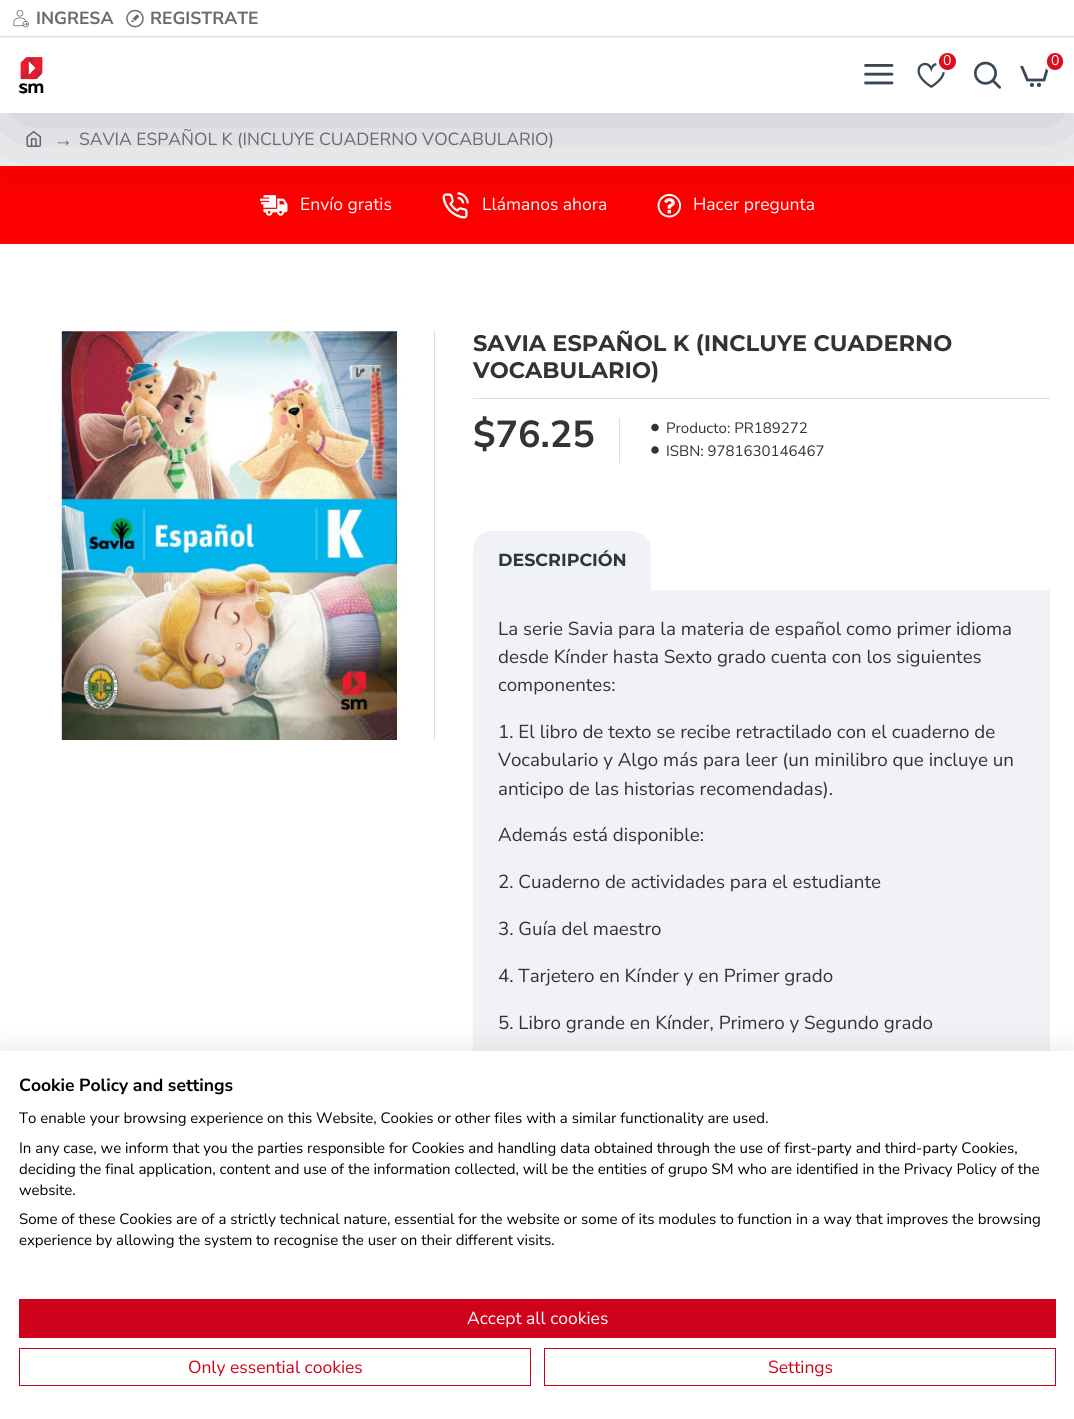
import math
import cairo



def rounded_rect(context, x, y, w, h, r):
    context.new_sub_path()
    for i, (u, v) in enumerate([(x + w - r, y + h - r), (x + r, y + h - r), (x + r, y + r), (x + w - r, y + r)]):
        context.arc(u, v, r, i * math.pi / 2, (i + 1) * math.pi / 2)
    context.close_path()


def draw_shadow(context, x, y, w, h, r, blur, alpha):
    context.push_group_with_content(cairo.Content.ALPHA)
    context.set_operator(cairo.Operator.SOURCE)
    for i in range(15, -16, -2):
        e = blur * i / 6
        if min(w, h) + 2 * e > 0:
            context.set_source_rgba(0, 0, 0, alpha * math.erfc((i - 1) / 8.5) / 2)
            rounded_rect(context, x - e, y - e, w + 2 * e, h + 2 * e, max(0, min(r + e + blur * .6, min(w, h) / 2 + e)))
            context.fill()
    context.mask(context.pop_group())


def draw_image(context, path, x, y, w, h):
    context.save()
    context.set_source_surface(cairo.ImageSurface.create_from_png(path), x, y)
    context.rectangle(x, y, w, h)
    context.fill()
    context.restore()


def draw(context):
    context.set_source_rgb(1, 1, 1)
    context.paint()
    context.set_source_rgb(240 / 255, 242 / 255, 245 / 255)
    context.rectangle(0, 113, 1074, 53)
    context.fill()
    draw_image(context, "images/8.png", 26, 131, 16, 16)
    context.set_source_rgb(254 / 255, 0, 0)
    context.rectangle(0, 166, 1074, 78)
    context.fill()
    draw_image(context, "images/9.png", 260, 195, 28, 21)
    draw_image(context, "images/10.png", 442, 192, 27, 27)
    draw_image(context, "images/11.png", 657, 193, 25, 25)
    context.set_source_rgb(0, 0, 0)
    draw_shadow(context, 13, 69, 1050, 50, 0, 56, 0.2)
    context.set_source_rgb(1, 1, 1)
    context.rectangle(0, 0, 1074, 36)
    context.fill()
    context.set_source_rgb(221 / 255, 221 / 255, 221 / 255)
    context.rectangle(0, 36, 1074, 1)
    context.fill()
    draw_image(context, "images/1.png", 13, 9, 16, 19)
    draw_image(context, "images/2.png", 126, 9, 18, 19)
    context.set_source_rgb(1, 1, 1)
    context.rectangle(0, 38, 1074, 75)
    context.fill()
    draw_image(context, "images/3.png", 18, 57, 26, 37)
    draw_image(context, "images/4.png", 864, 64, 30, 21)
    draw_image(context, "images/5.png", 917, 62, 28, 26)
    context.set_source_rgb(221 / 255, 14 / 255, 28 / 255)
    context.arc(947.5, 61.5, 10, 0, 2 * math.pi)
    context.fill_preserve()
    context.set_source_rgb(1, 1, 1)
    context.set_line_width(3)
    context.stroke()
    draw_image(context, "images/6.png", 974, 61, 27, 28)
    draw_image(context, "images/7.png", 1020, 65, 29, 22)
    context.set_source_rgb(221 / 255, 14 / 255, 28 / 255)
    rounded_rect(context, 1045.5, 51.5, 19, 20, 9.5)
    context.fill_preserve()
    context.set_source_rgb(1, 1, 1)
    context.stroke()
    context.set_source_rgb(221 / 255, 221 / 255, 221 / 255)
    context.rectangle(434, 331, 1, 409)
    context.fill()
    draw_image(context, "images/12.png", 58, 331, 343, 409)
    context.rectangle(473, 398, 577, 1)
    context.fill()
    context.rectangle(619, 418, 1, 45)
    context.fill()
    draw_image(context, "images/13.png", 651, 423, 8, 9)
    draw_image(context, "images/14.png", 651, 446, 8, 8)
    context.set_source_rgb(240 / 255, 242 / 255, 245 / 255)
    context.new_path()
    context.move_to(492, 531)
    context.line_to(632, 531)
    context.curve_to(642.5, 531, 651, 539.5, 651, 550)
    context.line_to(651, 590)
    context.line_to(473, 590)
    context.line_to(473, 550)
    context.curve_to(473, 539.5, 481.5, 531, 492, 531)
    context.close_path()
    context.fill()
    context.rectangle(473, 590, 577, 461)
    context.fill()
    context.set_source_rgb(0, 0, 0)
    draw_shadow(context, 0, 1051, 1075, 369, 0, 15, 0.1)
    context.set_source_rgb(1, 1, 1)
    context.rectangle(0, 1051, 1074, 368)
    context.fill()
    context.set_source_rgb(208 / 255, 2 / 255, 27 / 255)
    context.rectangle(19, 1299, 1037, 39)
    context.fill()
    context.rectangle(19.5, 1348.5, 511, 37)
    context.set_line_width(1)
    context.stroke()
    context.rectangle(544.5, 1348.5, 511, 37)
    context.stroke()
    context.select_font_face("Nunito Sans", cairo.FontSlant.NORMAL, cairo.FontWeight.BOLD)
    context.set_font_size(17.5)
    context.set_source_rgb(105 / 255, 105 / 255, 115 / 255)
    context.move_to(36, 24)
    context.show_text("INGRESA")
    context.move_to(150, 24)
    context.show_text("REGISTRATE")
    context.select_font_face("Nunito Sans")
    context.set_font_size(14)
    context.set_source_rgb(1, 1, 1)
    context.move_to(943, 65)
    context.show_text("0")
    context.move_to(1051, 65)
    context.show_text("0")
    context.select_font_face("Liberation Serif")
    context.set_font_size(18.75)
    context.set_source_rgb(105 / 255, 105 / 255, 115 / 255)
    context.move_to(54, 146)
    context.show_text("→")
    context.select_font_face("Nunito Sans")
    context.set_font_size(17.5)
    context.move_to(79, 145)
    context.show_text("SAVIA ESPAÑOL K (INCLUYE CUADERNO VOCABULARIO)")
    context.set_source_rgb(1, 1, 1)
    context.move_to(300, 210)
    context.show_text("Envío gratis")
    context.move_to(482, 210)
    context.show_text("Llámanos ahora")
    context.move_to(693, 210)
    context.show_text("Hacer pregunta")
    context.select_font_face("Montserrat", cairo.FontSlant.NORMAL, cairo.FontWeight.BOLD)
    context.set_font_size(22.5)
    context.set_source_rgb(51 / 255, 51 / 255, 51 / 255)
    context.move_to(473, 351)
    context.show_text("SAVIA ESPAÑOL K (INCLUYE CUADERNO")
    context.move_to(473, 378)
    context.show_text("VOCABULARIO)")
    context.select_font_face("Nunito Sans", cairo.FontSlant.NORMAL, cairo.FontWeight.BOLD)
    context.set_font_size(37.5)
    context.move_to(473, 447)
    context.show_text("$76.25")
    context.select_font_face("Nunito Sans")
    context.set_font_size(15)
    context.move_to(666, 433)
    context.show_text("Producto: PR189272")
    context.move_to(666, 456)
    context.show_text("ISBN: 9781630146467")
    context.select_font_face("Montserrat", cairo.FontSlant.NORMAL, cairo.FontWeight.BOLD)
    context.set_font_size(17.5)
    context.set_source_rgb(44 / 255, 54 / 255, 64 / 255)
    context.move_to(498, 566)
    context.show_text("DESCRIPCIÓN")
    context.select_font_face("Nunito Sans")
    context.set_font_size(18.75)
    context.set_source_rgb(51 / 255, 51 / 255, 51 / 255)
    context.move_to(498, 635)
    context.show_text("La serie Savia para la materia de español como primer idioma")
    context.move_to(498, 663)
    context.show_text("desde Kínder hasta Sexto grado cuenta con los siguientes")
    context.move_to(498, 691)
    context.show_text("componentes:")
    context.move_to(498, 738)
    context.show_text("1. El libro de texto se recibe retractilado con el cuaderno de")
    context.move_to(498, 766)
    context.show_text("Vocabulario y Algo más para leer (un minilibro que incluye un")
    context.move_to(498, 795)
    context.show_text("anticipo de las historias recomendadas).")
    context.move_to(498, 841)
    context.show_text("Además está disponible:")
    context.move_to(498, 888)
    context.show_text("2. Cuaderno de actividades para el estudiante")
    context.move_to(498, 935)
    context.show_text("3. Guía del maestro")
    context.move_to(498, 982)
    context.show_text("4. Tarjetero en Kínder y en Primer grado")
    context.move_to(498, 1029)
    context.show_text("5. Libro grande en Kínder, Primero y Segundo grado")
    context.select_font_face("Nunito Sans", cairo.FontSlant.NORMAL, cairo.FontWeight.BOLD)
    context.set_font_size(17.5)
    context.set_source_rgb(0, 0, 0)
    context.move_to(19, 1091)
    context.show_text("Cookie Policy and settings")
    context.select_font_face("Nunito Sans")
    context.set_font_size(15)
    context.move_to(19, 1123)
    context.show_text("To enable your browsing experience on this Website, Cookies or other files with a similar functionality are used.")
    context.move_to(19, 1153)
    context.show_text("In any case, we inform that you the parties responsible for Cookies and handling data obtained through the use of first-party and third-party Cookies,")
    context.move_to(19, 1174)
    context.show_text("deciding the final application, content and use of the information collected, will be the entities of grupo SM who are identified in the Privacy Policy of the")
    context.move_to(19, 1195)
    context.show_text("website.")
    context.move_to(19, 1224)
    context.show_text("Some of these Cookies are of a strictly technical nature, essential for the website or some of its modules to function in a way that improves the browsing")
    context.move_to(19, 1245)
    context.show_text("experience by allowing the system to recognise the user on their different visits.")
    context.set_font_size(17.5)
    context.set_source_rgb(1, 1, 1)
    context.move_to(467, 1324)
    context.show_text("Accept all cookies")
    context.set_source_rgb(208 / 255, 2 / 255, 27 / 255)
    context.move_to(188, 1373)
    context.show_text("Only essential cookies")
    context.move_to(768, 1373)
    context.show_text("Settings")


surface = cairo.ImageSurface(cairo.Format.RGB24, 1074, 1419)
context = cairo.Context(surface)
options = cairo.FontOptions()
options.set_hint_metrics(cairo.HintMetrics.OFF)
options.set_hint_style(cairo.HintStyle.NONE)
context.set_font_options(options)
context.set_miter_limit(4)
draw(context)
surface.write_to_png("out.png")
